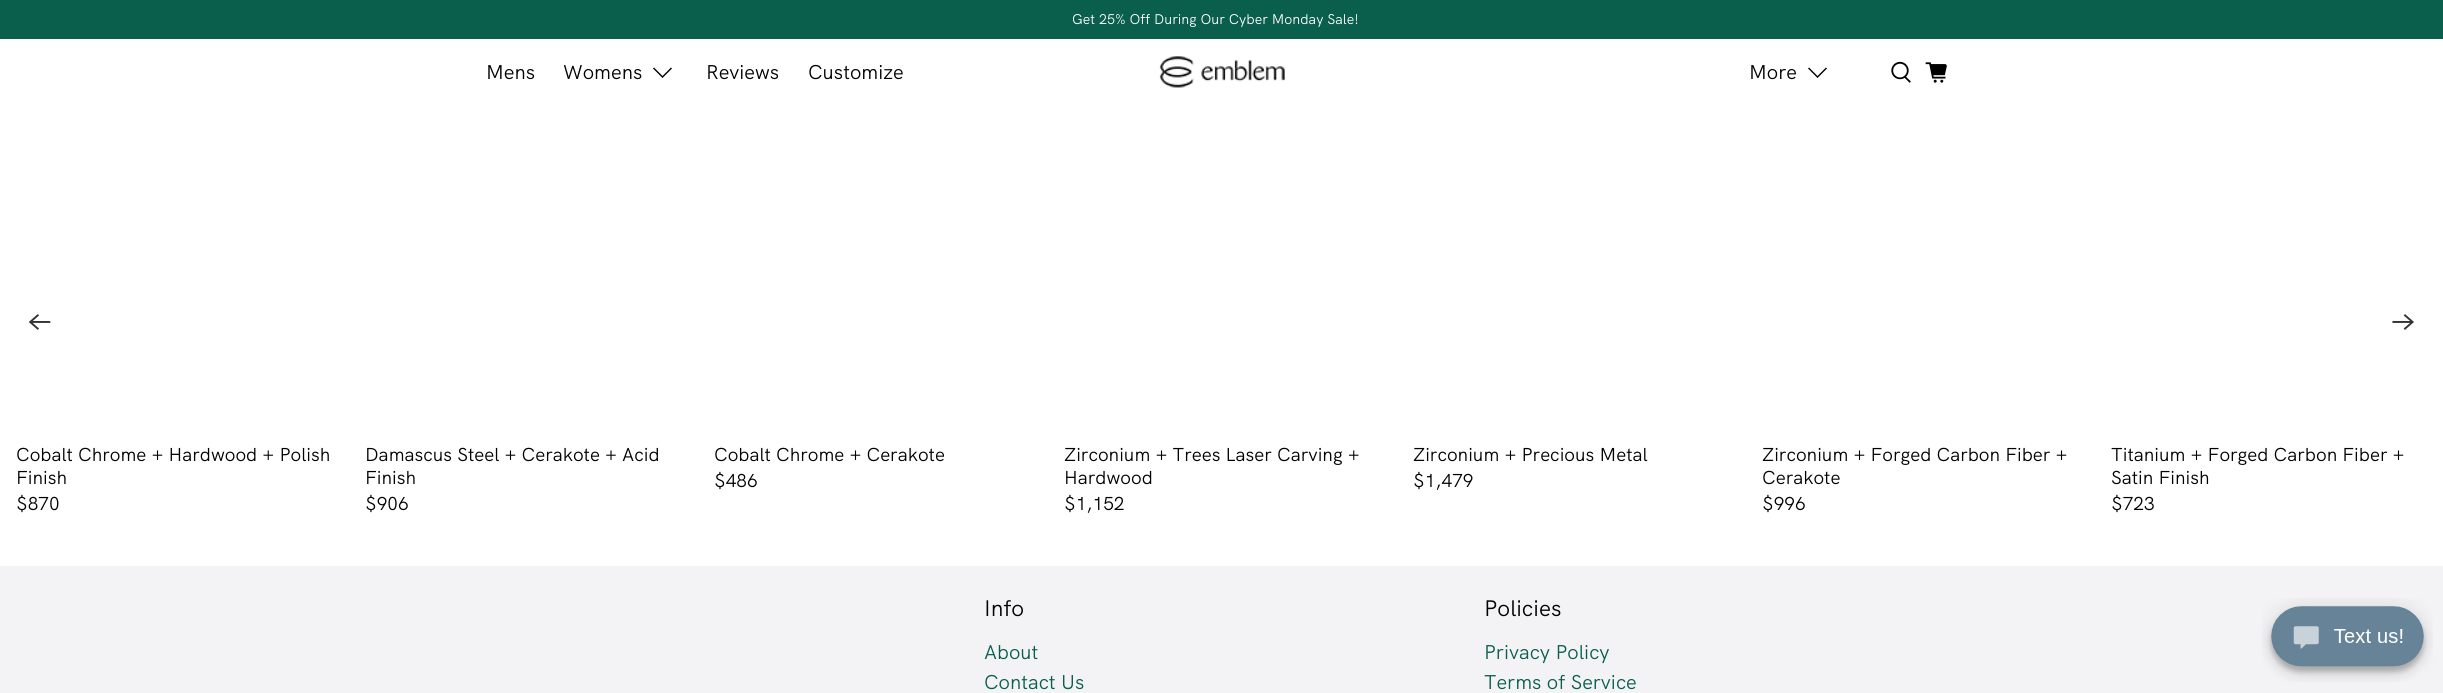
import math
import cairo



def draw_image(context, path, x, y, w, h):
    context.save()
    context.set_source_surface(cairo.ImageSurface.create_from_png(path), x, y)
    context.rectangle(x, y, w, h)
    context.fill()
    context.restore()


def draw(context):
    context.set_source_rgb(1, 1, 1)
    context.paint()
    context.set_source_rgb(10 / 255, 94 / 255, 76 / 255)
    context.rectangle(0, 0, 2443, 39)
    context.fill()
    context.set_source_rgb(0, 0, 0)
    context.new_path()
    context.move_to(662.5, 78)
    context.line_to(653, 68.5)
    context.line_to(654, 67.5)
    context.line_to(662.5, 76)
    context.line_to(671, 67.5)
    context.line_to(672, 68.5)
    context.close_path()
    context.fill()
    draw_image(context, "images/1.png", 1159, 56, 126, 32)
    context.new_path()
    context.move_to(1817.5, 78)
    context.line_to(1808, 68.5)
    context.line_to(1809, 67.5)
    context.line_to(1817.5, 76)
    context.line_to(1826, 67.5)
    context.line_to(1827, 68.5)
    context.close_path()
    context.fill()
    draw_image(context, "images/2.png", 1891, 61, 20, 22)
    draw_image(context, "images/3.png", 1925, 62, 22, 21)
    draw_image(context, "images/4.png", 28, 314, 23, 16)
    draw_image(context, "images/5.png", 2392, 314, 22, 16)
    context.set_source_rgb(243 / 255, 243 / 255, 245 / 255)
    context.rectangle(0, 566, 2443, 127)
    context.fill()
    draw_image(context, "images/6.png", 2262, 598, 171, 84)
    context.select_font_face("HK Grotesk")
    context.set_font_size(14.1)
    context.set_source_rgb(1, 1, 1)
    context.move_to(1072, 24)
    context.show_text("Get 25% Off During Our Cyber Monday Sale!")
    context.set_font_size(20)
    context.set_source_rgb(0, 0, 0)
    context.move_to(486, 79)
    context.show_text("Mens")
    context.move_to(563, 79)
    context.show_text("Womens")
    context.move_to(706, 79)
    context.show_text("Reviews")
    context.move_to(808, 79)
    context.show_text("Customize")
    context.move_to(1749, 79)
    context.show_text("More")
    context.set_font_size(18.75)
    context.move_to(16, 461)
    context.show_text("Cobalt Chrome + Hardwood + Polish")
    context.move_to(16, 484)
    context.show_text("Finish")
    context.move_to(16, 510)
    context.show_text("$870")
    context.move_to(365, 461)
    context.show_text("Damascus Steel + Cerakote + Acid")
    context.move_to(365, 484)
    context.show_text("Finish")
    context.move_to(365, 510)
    context.show_text("$906")
    context.move_to(714, 461)
    context.show_text("Cobalt Chrome + Cerakote")
    context.move_to(714, 487)
    context.show_text("$486")
    context.move_to(1064, 461)
    context.show_text("Zirconium + Trees Laser Carving +")
    context.move_to(1064, 484)
    context.show_text("Hardwood")
    context.move_to(1064, 510)
    context.show_text("$1,152")
    context.move_to(1413, 461)
    context.show_text("Zirconium + Precious Metal")
    context.move_to(1413, 487)
    context.show_text("$1,479")
    context.move_to(1762, 461)
    context.show_text("Zirconium + Forged Carbon Fiber +")
    context.move_to(1762, 484)
    context.show_text("Cerakote")
    context.move_to(1762, 510)
    context.show_text("$996")
    context.move_to(2111, 461)
    context.show_text("Titanium + Forged Carbon Fiber +")
    context.move_to(2111, 484)
    context.show_text("Satin Finish")
    context.move_to(2111, 510)
    context.show_text("$723")
    context.set_font_size(22.5)
    context.move_to(984, 616)
    context.show_text("Info")
    context.set_font_size(20)
    context.set_source_rgb(10 / 255, 94 / 255, 76 / 255)
    context.move_to(984, 659)
    context.show_text("About")
    context.move_to(984, 689)
    context.show_text("Contact Us")
    context.set_font_size(22.5)
    context.set_source_rgb(0, 0, 0)
    context.move_to(1484, 616)
    context.show_text("Policies")
    context.set_font_size(20)
    context.set_source_rgb(10 / 255, 94 / 255, 76 / 255)
    context.move_to(1484, 659)
    context.show_text("Privacy Policy")
    context.move_to(1484, 689)
    context.show_text("Terms of Service")


surface = cairo.ImageSurface(cairo.Format.RGB24, 2443, 693)
context = cairo.Context(surface)
options = cairo.FontOptions()
options.set_hint_metrics(cairo.HintMetrics.OFF)
options.set_hint_style(cairo.HintStyle.NONE)
context.set_font_options(options)
context.set_miter_limit(4)
draw(context)
surface.write_to_png("out.png")
